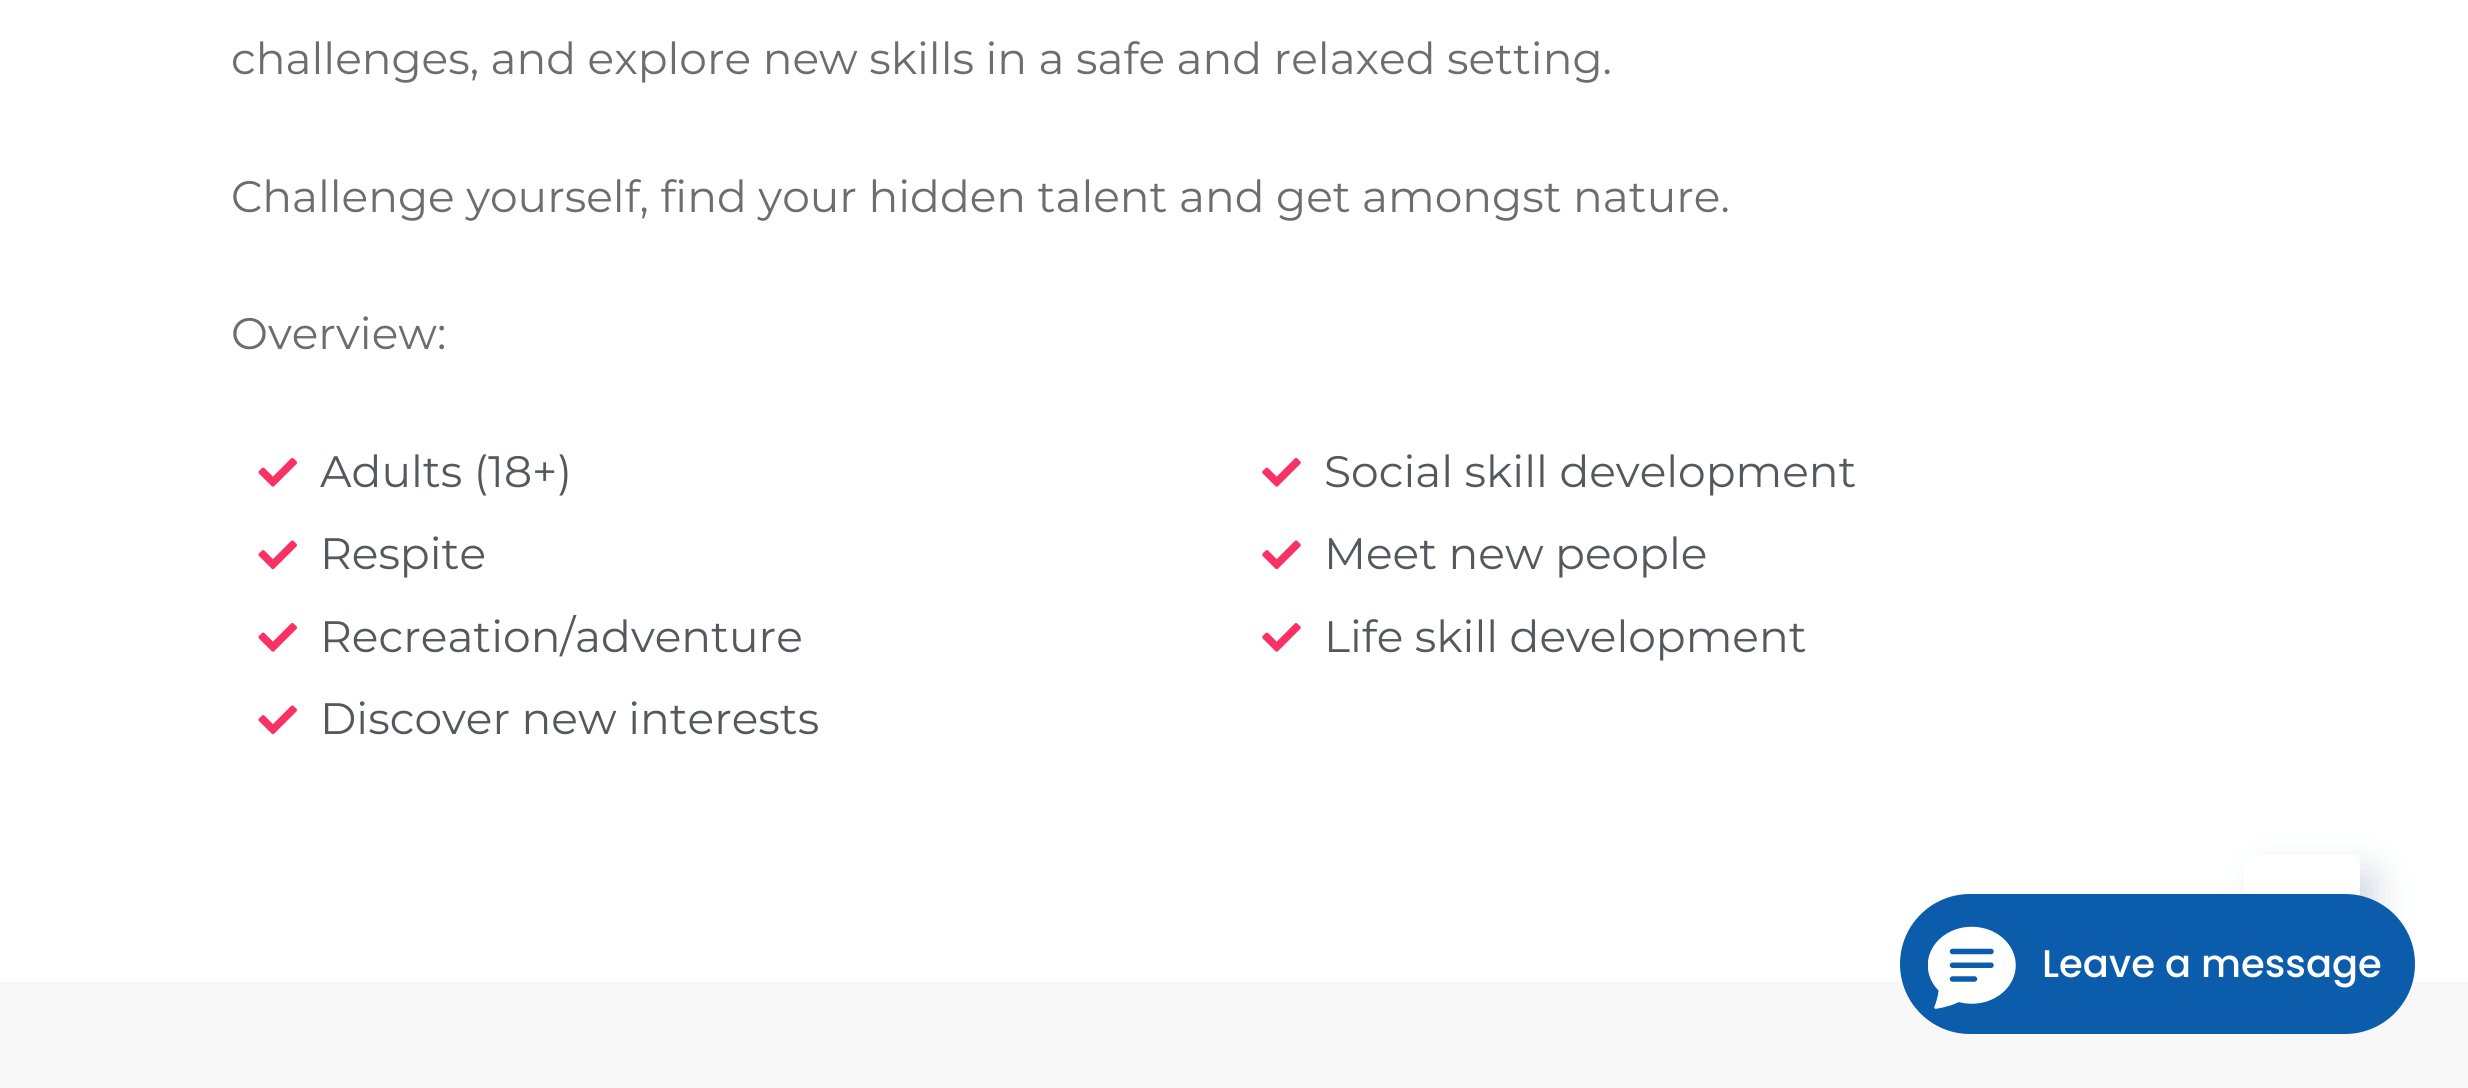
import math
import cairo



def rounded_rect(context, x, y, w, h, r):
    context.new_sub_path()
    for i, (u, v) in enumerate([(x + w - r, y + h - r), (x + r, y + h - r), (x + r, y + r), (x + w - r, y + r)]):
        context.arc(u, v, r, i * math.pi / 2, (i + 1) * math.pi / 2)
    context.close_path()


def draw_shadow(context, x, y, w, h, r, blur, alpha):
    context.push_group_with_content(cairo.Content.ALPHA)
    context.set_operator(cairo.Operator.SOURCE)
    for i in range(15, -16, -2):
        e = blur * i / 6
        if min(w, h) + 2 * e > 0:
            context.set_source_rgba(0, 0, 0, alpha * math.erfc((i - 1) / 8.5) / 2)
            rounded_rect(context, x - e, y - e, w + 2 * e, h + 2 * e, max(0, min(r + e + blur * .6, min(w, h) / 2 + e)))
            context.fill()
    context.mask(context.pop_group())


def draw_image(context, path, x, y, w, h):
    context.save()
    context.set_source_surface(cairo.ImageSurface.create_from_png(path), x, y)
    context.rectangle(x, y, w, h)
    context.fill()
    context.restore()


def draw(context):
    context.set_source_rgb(1, 1, 1)
    context.paint()
    draw_image(context, "images/1.png", 258, 458, 39, 29)
    draw_image(context, "images/2.png", 258, 540, 39, 30)
    draw_image(context, "images/1.png", 258, 623, 39, 29)
    draw_image(context, "images/2.png", 258, 705, 39, 30)
    draw_image(context, "images/3.png", 1262, 458, 39, 29)
    draw_image(context, "images/4.png", 1262, 540, 39, 30)
    draw_image(context, "images/3.png", 1262, 623, 39, 29)
    context.set_source_rgb(248 / 255, 248 / 255, 248 / 255)
    context.rectangle(0, 982, 2468, 106)
    context.fill()
    context.set_source_rgb(42 / 255, 67 / 255, 113 / 255)
    draw_shadow(context, 2261, 872, 115, 124, 6, 18, 0.2)
    context.set_source_rgb(1, 1, 1)
    rounded_rect(context, 2244, 855, 116, 124, 6)
    context.fill()
    context.set_source_rgb(11 / 255, 92 / 255, 171 / 255)
    rounded_rect(context, 1900, 894, 515, 140, 70)
    context.fill()
    draw_image(context, "images/5.png", 1928, 926, 88, 83)
    context.select_font_face("Montserrat")
    context.set_font_size(44)
    context.set_source_rgb(109 / 255, 109 / 255, 109 / 255)
    context.move_to(231, 74)
    context.show_text("challenges, and explore new skills in a safe and relaxed setting.")
    context.move_to(231, 212)
    context.show_text("Challenge yourself, find your hidden talent and get amongst nature.")
    context.move_to(231, 349)
    context.show_text("Overview:")
    context.set_source_rgb(84 / 255, 89 / 255, 95 / 255)
    context.move_to(320, 487)
    context.show_text("Adults (18+)")
    context.move_to(320, 569)
    context.show_text("Respite")
    context.move_to(320, 652)
    context.show_text("Recreation/adventure")
    context.move_to(320, 734)
    context.show_text("Discover new interests")
    context.move_to(1324, 487)
    context.show_text("Social skill development")
    context.move_to(1324, 569)
    context.show_text("Meet new people")
    context.move_to(1324, 652)
    context.show_text("Life skill development")
    context.select_font_face("Poppins Medium")
    context.set_font_size(38.5)
    context.set_source_rgb(1, 1, 1)
    context.move_to(2042, 977)
    context.show_text("Leave a message")


surface = cairo.ImageSurface(cairo.Format.RGB24, 2468, 1088)
context = cairo.Context(surface)
options = cairo.FontOptions()
options.set_hint_metrics(cairo.HintMetrics.OFF)
options.set_hint_style(cairo.HintStyle.NONE)
context.set_font_options(options)
context.set_miter_limit(4)
draw(context)
surface.write_to_png("out.png")
